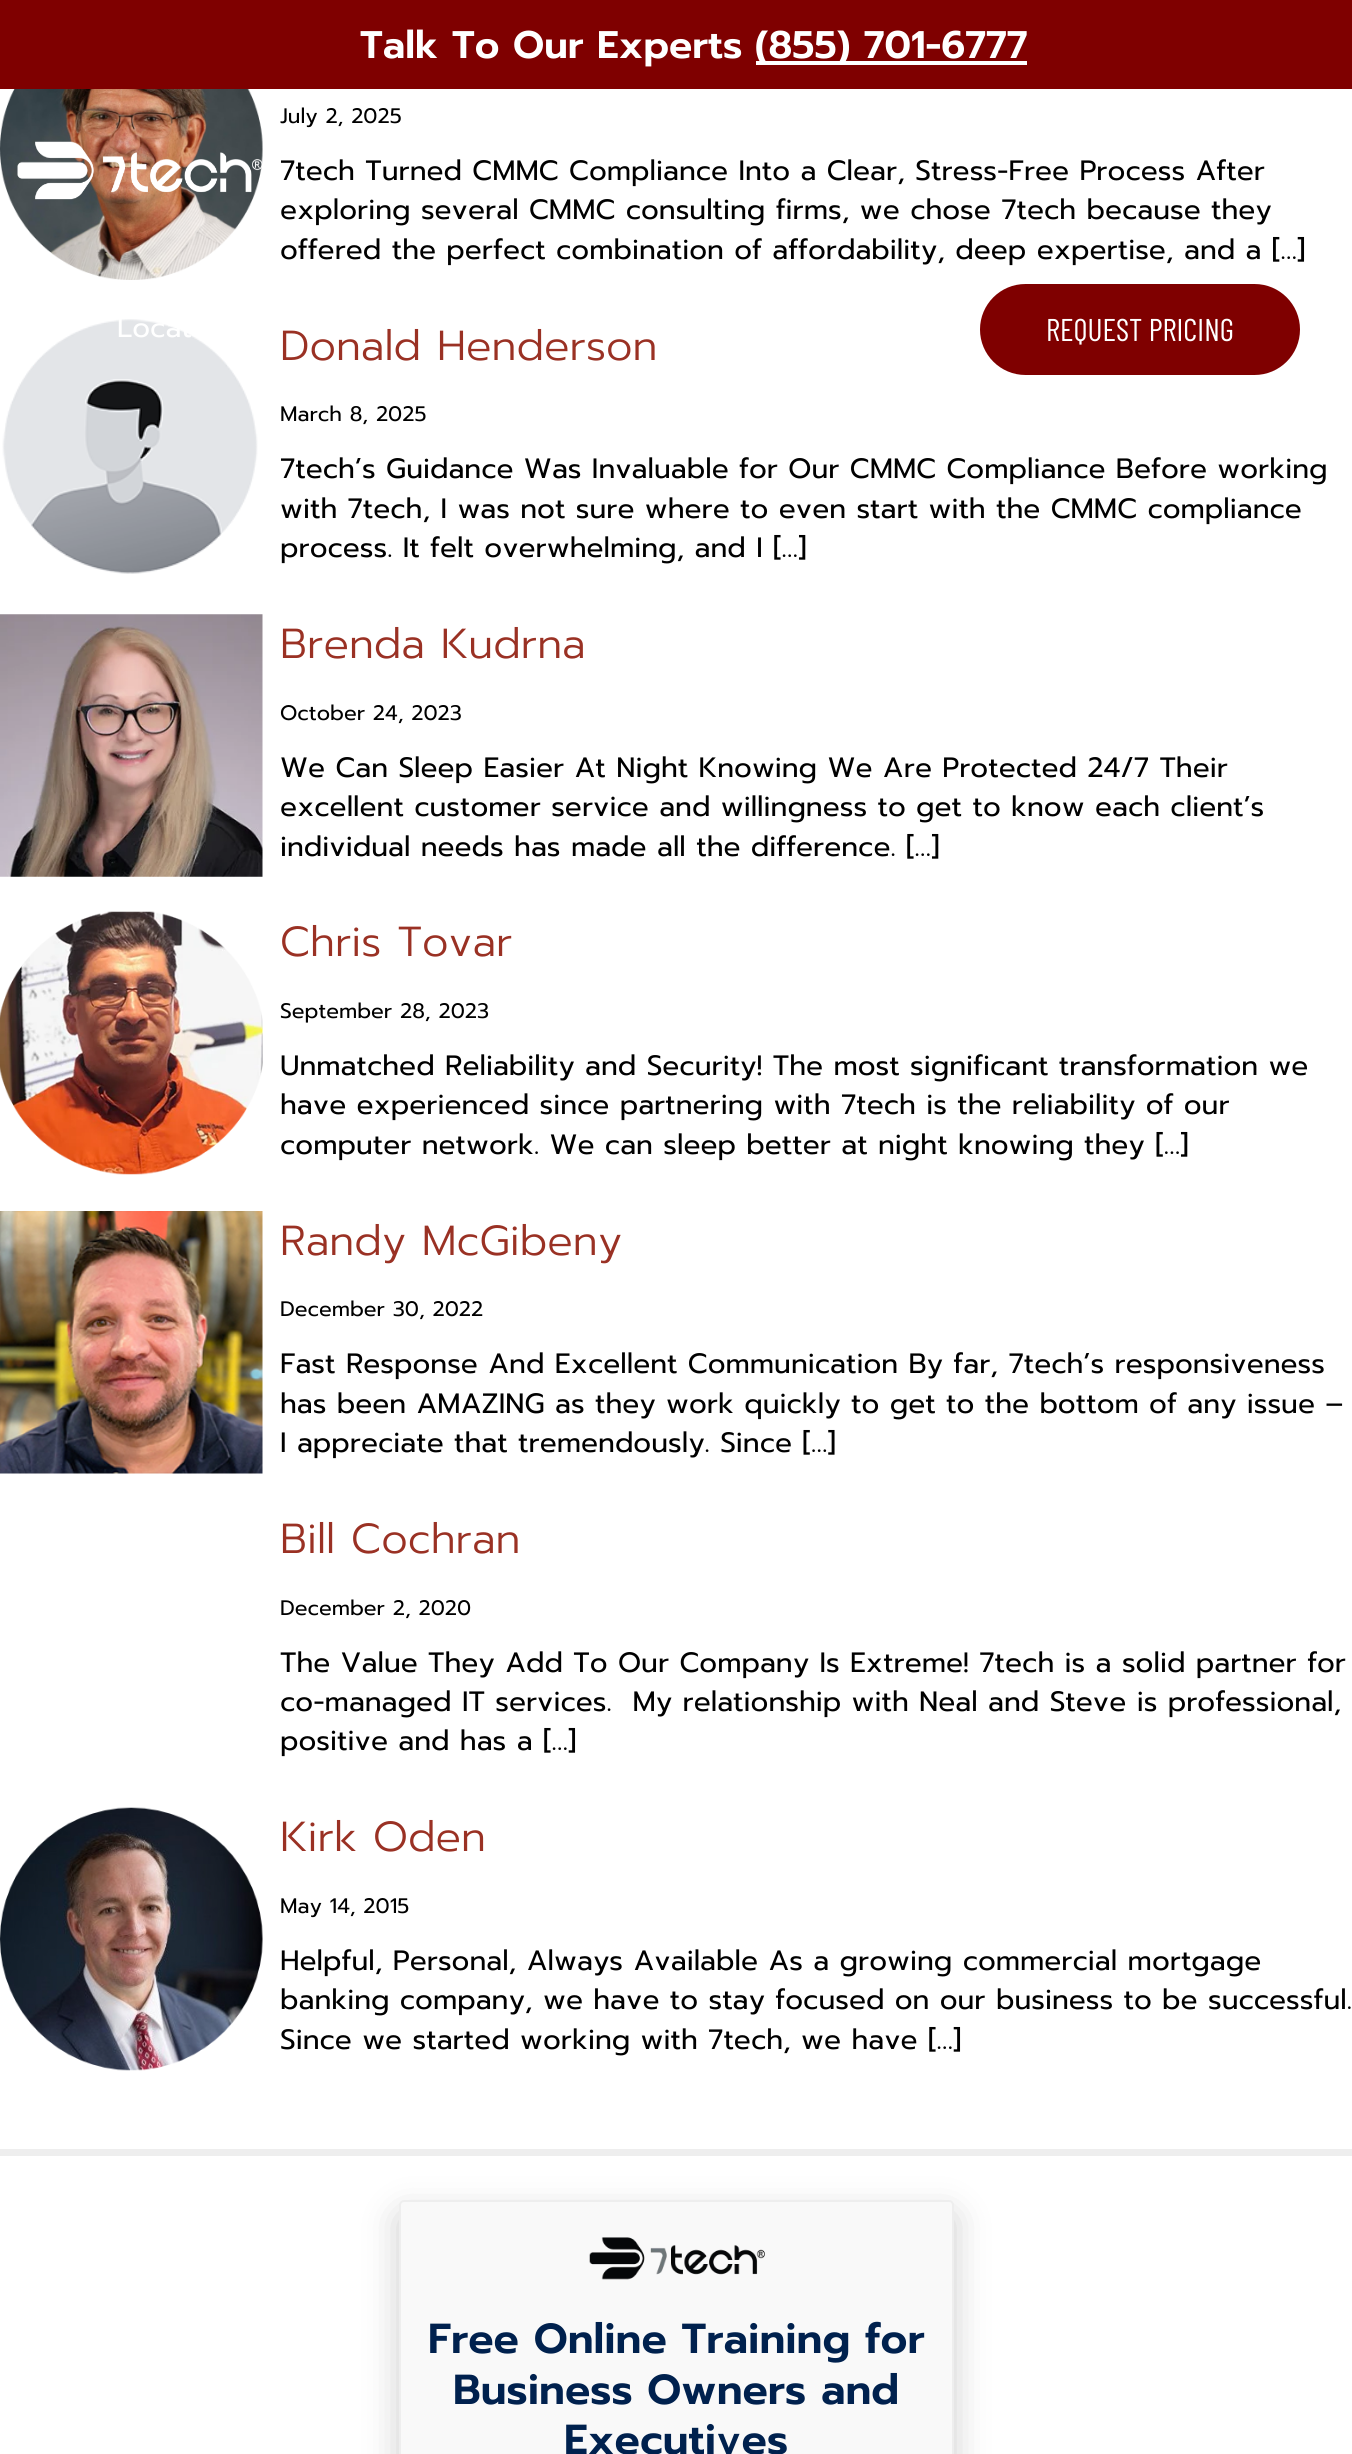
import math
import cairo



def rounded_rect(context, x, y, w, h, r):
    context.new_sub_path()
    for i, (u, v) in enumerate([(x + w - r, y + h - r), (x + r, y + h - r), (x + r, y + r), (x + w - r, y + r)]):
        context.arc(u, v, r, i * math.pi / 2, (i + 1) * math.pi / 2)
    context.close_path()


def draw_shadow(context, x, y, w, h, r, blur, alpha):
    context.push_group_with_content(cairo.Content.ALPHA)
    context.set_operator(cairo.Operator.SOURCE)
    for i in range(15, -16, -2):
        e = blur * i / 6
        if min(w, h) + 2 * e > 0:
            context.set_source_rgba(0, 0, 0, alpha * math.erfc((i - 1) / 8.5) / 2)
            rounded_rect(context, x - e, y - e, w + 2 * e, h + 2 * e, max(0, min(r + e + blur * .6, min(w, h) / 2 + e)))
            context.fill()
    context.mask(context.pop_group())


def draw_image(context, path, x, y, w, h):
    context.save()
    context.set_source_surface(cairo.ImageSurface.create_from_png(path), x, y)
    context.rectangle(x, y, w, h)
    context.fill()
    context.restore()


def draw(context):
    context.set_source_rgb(1, 1, 1)
    context.paint()
    context.set_source_rgb(127 / 255, 0, 0)
    context.rectangle(0, 0, 1352, 89)
    context.fill()
    context.set_source_rgb(1, 1, 1)
    context.rectangle(756, 61, 271, 4)
    context.fill()
    draw_image(context, "images/2.png", 0, 89, 263, 191)
    draw_image(context, "images/1.png", 17, 141, 245, 59)
    context.set_source_rgb(127 / 255, 0, 0)
    rounded_rect(context, 980, 284, 320, 91, 45.5)
    context.fill()
    draw_image(context, "images/3.png", 2, 319, 256, 255)
    draw_image(context, "images/4.png", 0, 614, 263, 263)
    draw_image(context, "images/5.png", 0, 911, 263, 264)
    draw_image(context, "images/6.png", 0, 1211, 263, 263)
    draw_image(context, "images/7.png", 0, 1807, 263, 264)
    context.set_source_rgb(238 / 255, 238 / 255, 238 / 255)
    context.rectangle(0, 2149, 1352, 7)
    context.fill()
    context.set_source_rgb(0, 0, 0)
    draw_shadow(context, 399, 2214, 555, 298, 5, 17.5, 0.2)
    context.set_source_rgb(249 / 255, 249 / 255, 249 / 255)
    rounded_rect(context, 400, 2201, 553, 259, 4)
    context.fill_preserve()
    context.set_source_rgb(238 / 255, 238 / 255, 238 / 255)
    context.stroke()
    draw_image(context, "images/8.png", 589, 2237, 176, 43)
    context.select_font_face("Prompt SemiBold")
    context.set_font_size(38.5)
    context.set_source_rgb(1, 1, 1)
    context.move_to(360, 58)
    context.show_text("Talk To Our Experts")
    context.move_to(755, 58)
    context.show_text("(855) 701-6777")
    context.select_font_face("Prompt")
    context.set_font_size(28)
    context.move_to(117, 337)
    context.show_text("Locat")
    context.select_font_face("Barlow Condensed")
    context.set_font_size(31.5)
    context.move_to(1046, 341)
    context.show_text("REQUEST PRICING")
    context.select_font_face("Prompt")
    context.set_font_size(21)
    context.set_source_rgb(0, 0, 0)
    context.move_to(280, 123)
    context.show_text("July 2, 2025")
    context.set_font_size(28)
    context.move_to(280, 180)
    context.show_text("7tech Turned CMMC Compliance Into a Clear, Stress-Free Process After")
    context.move_to(280, 219)
    context.show_text("exploring several CMMC consulting firms, we chose 7tech because they")
    context.move_to(280, 259)
    context.show_text("offered the perfect combination of affordability, deep expertise, and a […]")
    context.select_font_face("Prompt Light")
    context.set_font_size(42)
    context.set_source_rgb(154 / 255, 49 / 255, 36 / 255)
    context.move_to(280, 360)
    context.show_text("Donald Henderson")
    context.select_font_face("Prompt")
    context.set_font_size(21)
    context.set_source_rgb(0, 0, 0)
    context.move_to(280, 421)
    context.show_text("March 8, 2025")
    context.set_font_size(28)
    context.move_to(280, 478)
    context.show_text("7tech’s Guidance Was Invaluable for Our CMMC Compliance Before working")
    context.move_to(280, 518)
    context.show_text("with 7tech, I was not sure where to even start with the CMMC compliance")
    context.move_to(280, 557)
    context.show_text("process. It felt overwhelming, and I […]")
    context.select_font_face("Prompt Light")
    context.set_font_size(42)
    context.set_source_rgb(154 / 255, 49 / 255, 36 / 255)
    context.move_to(280, 658)
    context.show_text("Brenda Kudrna")
    context.select_font_face("Prompt")
    context.set_font_size(21)
    context.set_source_rgb(0, 0, 0)
    context.move_to(280, 720)
    context.show_text("October 24, 2023")
    context.set_font_size(28)
    context.move_to(280, 777)
    context.show_text("We Can Sleep Easier At Night Knowing We Are Protected 24/7 Their")
    context.move_to(280, 816)
    context.show_text("excellent customer service and willingness to get to know each client’s")
    context.move_to(280, 856)
    context.show_text("individual needs has made all the difference. […]")
    context.select_font_face("Prompt Light")
    context.set_font_size(42)
    context.set_source_rgb(154 / 255, 49 / 255, 36 / 255)
    context.move_to(280, 956)
    context.show_text("Chris Tovar")
    context.select_font_face("Prompt")
    context.set_font_size(21)
    context.set_source_rgb(0, 0, 0)
    context.move_to(280, 1018)
    context.show_text("September 28, 2023")
    context.set_font_size(28)
    context.move_to(280, 1075)
    context.show_text("Unmatched Reliability and Security! The most significant transformation we")
    context.move_to(280, 1114)
    context.show_text("have experienced since partnering with 7tech is the reliability of our")
    context.move_to(280, 1154)
    context.show_text("computer network. We can sleep better at night knowing they […]")
    context.select_font_face("Prompt Light")
    context.set_font_size(42)
    context.set_source_rgb(154 / 255, 49 / 255, 36 / 255)
    context.move_to(280, 1255)
    context.show_text("Randy McGibeny")
    context.select_font_face("Prompt")
    context.set_font_size(21)
    context.set_source_rgb(0, 0, 0)
    context.move_to(280, 1316)
    context.show_text("December 30, 2022")
    context.set_font_size(28)
    context.move_to(280, 1373)
    context.show_text("Fast Response And Excellent Communication By far, 7tech’s responsiveness")
    context.move_to(280, 1413)
    context.show_text("has been AMAZING as they work quickly to get to the bottom of any issue –")
    context.move_to(280, 1452)
    context.show_text("I appreciate that tremendously. Since […]")
    context.select_font_face("Prompt Light")
    context.set_font_size(42)
    context.set_source_rgb(154 / 255, 49 / 255, 36 / 255)
    context.move_to(280, 1553)
    context.show_text("Bill Cochran")
    context.select_font_face("Prompt")
    context.set_font_size(21)
    context.set_source_rgb(0, 0, 0)
    context.move_to(280, 1615)
    context.show_text("December 2, 2020")
    context.set_font_size(28)
    context.move_to(280, 1672)
    context.show_text("The Value They Add To Our Company Is Extreme! 7tech is a solid partner for")
    context.move_to(280, 1711)
    context.show_text("co-managed IT services.  My relationship with Neal and Steve is professional,")
    context.move_to(280, 1750)
    context.show_text("positive and has a […]")
    context.select_font_face("Prompt Light")
    context.set_font_size(42)
    context.set_source_rgb(154 / 255, 49 / 255, 36 / 255)
    context.move_to(280, 1851)
    context.show_text("Kirk Oden")
    context.select_font_face("Prompt")
    context.set_font_size(21)
    context.set_source_rgb(0, 0, 0)
    context.move_to(280, 1913)
    context.show_text("May 14, 2015")
    context.set_font_size(28)
    context.move_to(280, 1970)
    context.show_text("Helpful, Personal, Always Available As a growing commercial mortgage")
    context.move_to(280, 2009)
    context.show_text("banking company, we have to stay focused on our business to be successful.")
    context.move_to(280, 2049)
    context.show_text("Since we started working with 7tech, we have […]")
    context.select_font_face("Prompt SemiBold")
    context.set_font_size(42)
    context.set_source_rgb(0, 33 / 255, 78 / 255)
    context.move_to(428, 2353)
    context.show_text("Free Online Training for")
    context.move_to(453, 2404)
    context.show_text("Business Owners and")
    context.move_to(564, 2454)
    context.show_text("Executives")


surface = cairo.ImageSurface(cairo.Format.RGB24, 1352, 2454)
context = cairo.Context(surface)
options = cairo.FontOptions()
options.set_hint_metrics(cairo.HintMetrics.OFF)
options.set_hint_style(cairo.HintStyle.NONE)
context.set_font_options(options)
context.set_miter_limit(4)
draw(context)
surface.write_to_png("out.png")
